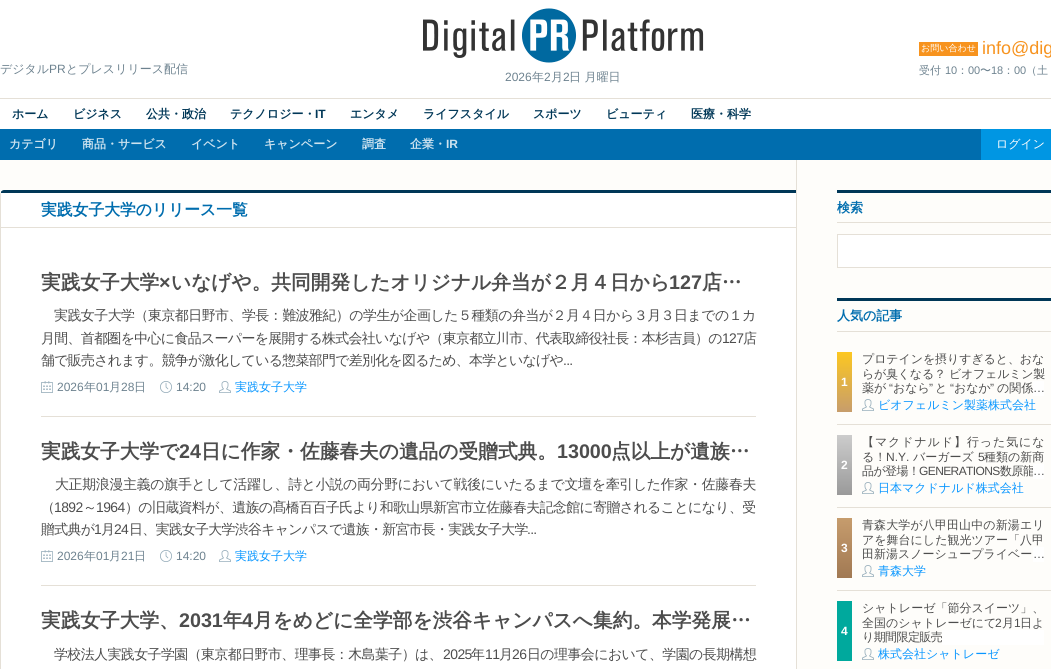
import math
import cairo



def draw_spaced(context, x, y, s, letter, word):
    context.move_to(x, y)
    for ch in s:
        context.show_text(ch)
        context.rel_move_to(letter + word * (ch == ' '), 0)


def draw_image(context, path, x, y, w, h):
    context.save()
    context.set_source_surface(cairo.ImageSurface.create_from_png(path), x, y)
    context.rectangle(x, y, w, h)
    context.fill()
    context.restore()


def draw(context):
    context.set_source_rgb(1, 1, 1)
    context.paint()
    context.set_source_rgb(247 / 255, 147 / 255, 30 / 255)
    context.rectangle(919, 42, 59, 14)
    context.fill()
    draw_image(context, "images/1.png", 423, 8, 281, 55)
    context.set_source_rgb(0, 109 / 255, 174 / 255)
    context.rectangle(0, 129, 981, 31)
    context.fill()
    context.set_source_rgb(229 / 255, 224 / 255, 215 / 255)
    context.rectangle(0, 98, 1051, 1)
    context.fill()
    context.set_source_rgb(0, 150 / 255, 227 / 255)
    context.rectangle(981, 129, 70, 31)
    context.fill()
    context.set_source_rgb(254 / 255, 253 / 255, 250 / 255)
    context.rectangle(0, 160, 1051, 509)
    context.fill()
    context.set_source_rgb(1, 1, 1)
    context.new_path()
    context.move_to(4, 190)
    context.line_to(796, 190)
    context.line_to(796, 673)
    context.line_to(4, 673)
    context.curve_to(2, 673, 0, 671, 0, 669)
    context.line_to(0, 194)
    context.curve_to(0, 192, 2, 190, 4, 190)
    context.close_path()
    context.fill()
    context.set_source_rgb(0, 55 / 255, 87 / 255)
    context.new_path()
    context.move_to(4, 190)
    context.curve_to(3, 190, 1, 191, 1, 192)
    context.line_to(1, 193)
    context.line_to(4, 193)
    context.line_to(796, 193)
    context.line_to(796, 190)
    context.close_path()
    context.fill()
    context.set_source_rgb(229 / 255, 224 / 255, 215 / 255)
    context.new_path()
    context.move_to(0, 194)
    context.line_to(0, 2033)
    context.line_to(1, 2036)
    context.line_to(2, 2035)
    context.line_to(1, 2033)
    context.line_to(1, 193)
    context.line_to(1, 192)
    context.close_path()
    context.fill()
    context.rectangle(1, 227, 795, 1)
    context.fill()
    draw_image(context, "images/2.png", 41, 381, 12, 12)
    draw_image(context, "images/3.png", 160, 381, 12, 12)
    draw_image(context, "images/4.png", 219, 381, 12, 12)
    context.rectangle(41, 416, 715, 1)
    context.fill()
    draw_image(context, "images/2.png", 41, 550, 12, 12)
    draw_image(context, "images/3.png", 160, 550, 12, 12)
    draw_image(context, "images/4.png", 219, 550, 12, 12)
    context.rectangle(41, 585, 715, 1)
    context.fill()
    context.rectangle(796, 160, 1, 509)
    context.fill()
    context.set_source_rgb(0, 55 / 255, 87 / 255)
    context.rectangle(837, 190, 214, 3)
    context.fill()
    context.set_source_rgb(229 / 255, 224 / 255, 215 / 255)
    context.rectangle(837, 222, 214, 1)
    context.fill()
    context.rectangle(837.5, 234.5, 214, 33)
    context.set_line_width(1)
    context.stroke()
    context.set_source_rgb(1, 1, 1)
    context.rectangle(838, 235, 213, 32)
    context.fill()
    context.set_source_rgb(0, 55 / 255, 87 / 255)
    context.rectangle(837, 298, 214, 3)
    context.fill()
    context.set_source_rgb(229 / 255, 224 / 255, 215 / 255)
    context.rectangle(837, 331, 214, 1)
    context.fill()
    gradient = cairo.LinearGradient(845, 352, 845, 412)
    gradient.add_color_stop_rgba(0, 252 / 255, 199 / 255, 33 / 255, 1)
    gradient.add_color_stop_rgba(1, 199 / 255, 157 / 255, 108 / 255, 1)
    context.set_source(gradient)
    context.rectangle(837, 352, 15, 60)
    context.fill()
    context.set_source_rgb(1, 1, 1)
    context.rectangle(1033, 381, 11, 15)
    context.fill()
    draw_image(context, "images/5.png", 862, 399, 12, 12)
    context.set_source_rgb(229 / 255, 224 / 255, 215 / 255)
    context.rectangle(837, 424, 214, 1)
    context.fill()
    gradient = cairo.LinearGradient(845, 435, 845, 495)
    gradient.add_color_stop_rgba(0, 204 / 255, 204 / 255, 204 / 255, 1)
    gradient.add_color_stop_rgba(1, 154 / 255, 154 / 255, 154 / 255, 1)
    context.set_source(gradient)
    context.rectangle(837, 435, 15, 60)
    context.fill()
    draw_image(context, "images/5.png", 862, 482, 12, 12)
    context.set_source_rgb(229 / 255, 224 / 255, 215 / 255)
    context.rectangle(837, 507, 214, 1)
    context.fill()
    gradient = cairo.LinearGradient(845, 518, 845, 578)
    gradient.add_color_stop_rgba(0, 198 / 255, 156 / 255, 109 / 255, 1)
    gradient.add_color_stop_rgba(1, 161 / 255, 121 / 255, 83 / 255, 1)
    context.set_source(gradient)
    context.rectangle(837, 518, 15, 60)
    context.fill()
    context.set_source_rgb(1, 1, 1)
    context.rectangle(1033, 547, 11, 15)
    context.fill()
    draw_image(context, "images/5.png", 862, 565, 12, 12)
    context.set_source_rgb(229 / 255, 224 / 255, 215 / 255)
    context.rectangle(837, 590, 214, 1)
    context.fill()
    context.set_source_rgb(0, 169 / 255, 157 / 255)
    context.rectangle(837, 601, 15, 60)
    context.fill()
    context.set_source_rgb(1, 1, 1)
    context.rectangle(942, 630, 102, 15)
    context.fill()
    draw_image(context, "images/5.png", 862, 648, 12, 12)
    context.select_font_face("WenQuanYi Zen Hei Medium")
    context.set_font_size(12)
    context.set_source_rgb(109 / 255, 130 / 255, 143 / 255)
    context.move_to(0, 73)
    context.show_text("デジタル")
    context.select_font_face("Liberation Sans")
    context.move_to(49, 73)
    context.show_text("PR")
    context.select_font_face("WenQuanYi Zen Hei Medium")
    context.move_to(66, 73)
    context.show_text("とプレスリリース配信")
    context.set_font_size(9)
    context.set_source_rgb(1, 1, 1)
    context.move_to(921, 51)
    context.show_text("お問い合わせ")
    context.select_font_face("Liberation Sans")
    context.set_font_size(18)
    context.set_source_rgb(247 / 255, 147 / 255, 30 / 255)
    context.move_to(982, 54)
    context.show_text("info@dig")
    context.select_font_face("WenQuanYi Zen Hei Medium")
    context.set_font_size(11)
    context.set_source_rgb(109 / 255, 130 / 255, 143 / 255)
    context.move_to(919, 74)
    context.show_text("受付")
    context.select_font_face("Liberation Sans")
    context.move_to(945, 74)
    context.show_text("10")
    context.select_font_face("WenQuanYi Zen Hei Medium")
    context.move_to(957, 74)
    context.show_text("：")
    context.select_font_face("Liberation Sans")
    context.move_to(968, 74)
    context.show_text("00")
    context.select_font_face("WenQuanYi Zen Hei Medium")
    context.move_to(980, 74)
    context.show_text("〜")
    context.select_font_face("Liberation Sans")
    context.move_to(991, 74)
    context.show_text("18")
    context.select_font_face("WenQuanYi Zen Hei Medium")
    context.move_to(1003, 74)
    context.show_text("：")
    context.select_font_face("Liberation Sans")
    context.move_to(1014, 74)
    context.show_text("00")
    context.select_font_face("WenQuanYi Zen Hei Medium")
    context.move_to(1026, 74)
    context.show_text("（土")
    context.select_font_face("Liberation Sans")
    context.set_font_size(12)
    context.move_to(505, 81)
    context.show_text("2026")
    context.select_font_face("WenQuanYi Zen Hei Medium")
    context.move_to(532, 81)
    context.show_text("年")
    context.select_font_face("Liberation Sans")
    context.move_to(544, 81)
    context.show_text("2")
    context.select_font_face("WenQuanYi Zen Hei Medium")
    context.move_to(551, 81)
    context.show_text("月")
    context.select_font_face("Liberation Sans")
    context.move_to(563, 81)
    context.show_text("2")
    context.select_font_face("WenQuanYi Zen Hei Medium")
    context.move_to(569, 81)
    context.show_text("日 月曜日")
    context.select_font_face("WenQuanYi Zen Hei", cairo.FontSlant.NORMAL, cairo.FontWeight.BOLD)
    context.set_source_rgb(0, 55 / 255, 87 / 255)
    context.move_to(12, 118)
    context.show_text("ホーム")
    context.move_to(73, 118)
    context.show_text("ビジネス")
    context.move_to(146, 118)
    context.show_text("公共・政治")
    context.move_to(230, 118)
    context.show_text("テクノロジー・")
    context.select_font_face("Liberation Sans", cairo.FontSlant.NORMAL, cairo.FontWeight.BOLD)
    context.move_to(315, 118)
    context.show_text("IT")
    context.select_font_face("WenQuanYi Zen Hei", cairo.FontSlant.NORMAL, cairo.FontWeight.BOLD)
    context.move_to(350, 118)
    context.show_text("エンタメ")
    context.move_to(423, 118)
    context.show_text("ライフスタイル")
    context.move_to(533, 118)
    context.show_text("スポーツ")
    context.move_to(606, 118)
    context.show_text("ビューティ")
    context.move_to(691, 118)
    context.show_text("医療・科学")
    context.set_source_rgb(204 / 255, 226 / 255, 239 / 255)
    context.move_to(9, 148)
    context.show_text("カテゴリ")
    context.move_to(82, 148)
    context.show_text("商品・サービス")
    context.move_to(191, 148)
    context.show_text("イベント")
    context.move_to(264, 148)
    context.show_text("キャンペーン")
    context.move_to(362, 148)
    context.show_text("調査")
    context.move_to(410, 148)
    context.show_text("企業・")
    context.select_font_face("Liberation Sans", cairo.FontSlant.NORMAL, cairo.FontWeight.BOLD)
    context.move_to(446, 148)
    context.show_text("IR")
    context.select_font_face("WenQuanYi Zen Hei Medium")
    context.set_source_rgb(1, 1, 1)
    context.move_to(996, 148)
    context.show_text("ログイン")
    context.select_font_face("WenQuanYi Zen Hei", cairo.FontSlant.NORMAL, cairo.FontWeight.BOLD)
    context.set_font_size(15.8)
    context.set_source_rgb(0, 109 / 255, 174 / 255)
    context.move_to(41, 215)
    context.show_text("実践女子大学のリリース一覧")
    context.set_font_size(19.7)
    context.set_source_rgb(77 / 255, 77 / 255, 77 / 255)
    context.move_to(41, 289)
    context.show_text("実践女子大学")
    context.select_font_face("Liberation Sans", cairo.FontSlant.NORMAL, cairo.FontWeight.BOLD)
    context.move_to(159, 289)
    context.show_text("×")
    context.select_font_face("WenQuanYi Zen Hei", cairo.FontSlant.NORMAL, cairo.FontWeight.BOLD)
    context.move_to(171, 289)
    context.show_text("いなげや。共同開発したオリジナル弁当が２月４日から")
    context.select_font_face("Liberation Sans", cairo.FontSlant.NORMAL, cairo.FontWeight.BOLD)
    context.move_to(669, 289)
    context.show_text("127")
    context.select_font_face("WenQuanYi Zen Hei", cairo.FontSlant.NORMAL, cairo.FontWeight.BOLD)
    context.move_to(702, 289)
    context.show_text("店…")
    context.select_font_face("WenQuanYi Zen Hei Medium")
    context.set_font_size(13.92)
    draw_spaced(context, 54, 320, "実践女子大学（東京都日野市、学長：難波雅紀）の学生が企画した５種類の弁当が２月４日から３月３日までの１カ", -0.5, 0)
    draw_spaced(context, 41, 343, "月間、首都圏を中心に食品スーパーを展開する株式会社いなげや（東京都立川市、代表取締役社長：本杉吉員）の", -0.65, 0)
    context.select_font_face("Liberation Sans")
    draw_spaced(context, 722, 343, "127", -0.65, 0)
    context.select_font_face("WenQuanYi Zen Hei Medium")
    draw_spaced(context, 743, 343, "店", -0.65, 0)
    draw_spaced(context, 41, 365, "舗で販売されます。競争が激化している惣菜部門で差別化を図るため、本学といなげや", -0.7, 0)
    context.select_font_face("Liberation Sans")
    draw_spaced(context, 563, 365, "...", -0.7, 0)
    context.set_source_rgb(1, 1, 1)
    context.rectangle(572, 363, 1, 2)
    context.fill()
    context.set_font_size(12)
    context.set_source_rgb(109 / 255, 130 / 255, 143 / 255)
    context.move_to(57, 391)
    context.show_text("2026")
    context.select_font_face("WenQuanYi Zen Hei Medium")
    context.move_to(84, 391)
    context.show_text("年")
    context.select_font_face("Liberation Sans")
    context.move_to(96, 391)
    context.show_text("01")
    context.select_font_face("WenQuanYi Zen Hei Medium")
    context.move_to(109, 391)
    context.show_text("月")
    context.select_font_face("Liberation Sans")
    context.move_to(121, 391)
    context.show_text("28")
    context.select_font_face("WenQuanYi Zen Hei Medium")
    context.move_to(134, 391)
    context.show_text("日")
    context.select_font_face("Liberation Sans")
    context.move_to(176, 391)
    context.show_text("14:20")
    context.select_font_face("WenQuanYi Zen Hei Medium")
    context.set_source_rgb(8 / 255, 150 / 255, 1)
    context.move_to(235, 391)
    context.show_text("実践女子大学")
    context.select_font_face("WenQuanYi Zen Hei", cairo.FontSlant.NORMAL, cairo.FontWeight.BOLD)
    context.set_font_size(19.7)
    context.set_source_rgb(77 / 255, 77 / 255, 77 / 255)
    context.move_to(41, 458)
    context.show_text("実践女子大学で")
    context.select_font_face("Liberation Sans", cairo.FontSlant.NORMAL, cairo.FontWeight.BOLD)
    context.move_to(179, 458)
    context.show_text("24")
    context.select_font_face("WenQuanYi Zen Hei", cairo.FontSlant.NORMAL, cairo.FontWeight.BOLD)
    context.move_to(201, 458)
    context.show_text("日に作家・佐藤春夫の遺品の受贈式典。")
    context.select_font_face("Liberation Sans", cairo.FontSlant.NORMAL, cairo.FontWeight.BOLD)
    context.move_to(557, 458)
    context.show_text("13000")
    context.select_font_face("WenQuanYi Zen Hei", cairo.FontSlant.NORMAL, cairo.FontWeight.BOLD)
    context.move_to(611, 458)
    context.show_text("点以上が遺族…")
    context.select_font_face("WenQuanYi Zen Hei Medium")
    context.set_font_size(13.92)
    draw_spaced(context, 55, 489, "大正期浪漫主義の旗手として活躍し、詩と小説の両分野において戦後にいたるまで文壇を牽引した作家・佐藤春夫", -0.3, 0)
    draw_spaced(context, 41, 512, "（", -0.6, 0)
    context.select_font_face("Liberation Sans")
    draw_spaced(context, 54, 512, "1892", -0.6, 0)
    context.select_font_face("WenQuanYi Zen Hei Medium")
    draw_spaced(context, 83, 512, "～", -0.6, 0)
    context.select_font_face("Liberation Sans")
    draw_spaced(context, 96, 512, "1964", -0.6, 0)
    context.select_font_face("WenQuanYi Zen Hei Medium")
    draw_spaced(context, 125, 512, "）の旧蔵資料が、遺族の髙橋百百子氏より和歌山県新宮市立佐藤春夫記念館に寄贈されることになり、受", -0.6, 0)
    draw_spaced(context, 41, 534, "贈式典が", -0.7, 0)
    context.select_font_face("Liberation Sans")
    draw_spaced(context, 94, 534, "1", -0.7, 0)
    context.select_font_face("WenQuanYi Zen Hei Medium")
    draw_spaced(context, 101, 534, "月", -0.7, 0)
    context.select_font_face("Liberation Sans")
    draw_spaced(context, 114, 534, "24", -0.7, 0)
    context.select_font_face("WenQuanYi Zen Hei Medium")
    draw_spaced(context, 129, 534, "日、実践女子大学渋谷キャンパスで遺族・新宮市長・実践女子大学", -0.7, 0)
    context.select_font_face("Liberation Sans")
    draw_spaced(context, 527, 534, "...", -0.7, 0)
    context.set_source_rgb(1, 1, 1)
    context.rectangle(536, 532, 1, 2)
    context.fill()
    context.set_font_size(12)
    context.set_source_rgb(109 / 255, 130 / 255, 143 / 255)
    context.move_to(57, 560)
    context.show_text("2026")
    context.select_font_face("WenQuanYi Zen Hei Medium")
    context.move_to(84, 560)
    context.show_text("年")
    context.select_font_face("Liberation Sans")
    context.move_to(96, 560)
    context.show_text("01")
    context.select_font_face("WenQuanYi Zen Hei Medium")
    context.move_to(109, 560)
    context.show_text("月")
    context.select_font_face("Liberation Sans")
    context.move_to(121, 560)
    context.show_text("21")
    context.select_font_face("WenQuanYi Zen Hei Medium")
    context.move_to(134, 560)
    context.show_text("日")
    context.select_font_face("Liberation Sans")
    context.move_to(176, 560)
    context.show_text("14:20")
    context.select_font_face("WenQuanYi Zen Hei Medium")
    context.set_source_rgb(8 / 255, 150 / 255, 1)
    context.move_to(235, 560)
    context.show_text("実践女子大学")
    context.select_font_face("WenQuanYi Zen Hei", cairo.FontSlant.NORMAL, cairo.FontWeight.BOLD)
    context.set_font_size(19.7)
    context.set_source_rgb(77 / 255, 77 / 255, 77 / 255)
    context.move_to(41, 627)
    context.show_text("実践女子大学、")
    context.select_font_face("Liberation Sans", cairo.FontSlant.NORMAL, cairo.FontWeight.BOLD)
    context.move_to(179, 627)
    context.show_text("2031")
    context.select_font_face("WenQuanYi Zen Hei", cairo.FontSlant.NORMAL, cairo.FontWeight.BOLD)
    context.move_to(223, 627)
    context.show_text("年")
    context.select_font_face("Liberation Sans", cairo.FontSlant.NORMAL, cairo.FontWeight.BOLD)
    context.move_to(242, 627)
    context.show_text("4")
    context.select_font_face("WenQuanYi Zen Hei", cairo.FontSlant.NORMAL, cairo.FontWeight.BOLD)
    context.move_to(253, 627)
    context.show_text("月をめどに全学部を渋谷キャンパスへ集約。本学発展…")
    context.select_font_face("WenQuanYi Zen Hei Medium")
    context.set_font_size(13.92)
    draw_spaced(context, 54, 659, "学校法人実践女子学園（東京都日野市、理事長：木島葉子）は、", -0.55, 0)
    context.select_font_face("Liberation Sans")
    draw_spaced(context, 443, 659, "2025", -0.55, 0)
    context.select_font_face("WenQuanYi Zen Hei Medium")
    draw_spaced(context, 471, 659, "年", -0.55, 0)
    context.select_font_face("Liberation Sans")
    draw_spaced(context, 485, 659, "11", -0.55, 0)
    context.select_font_face("WenQuanYi Zen Hei Medium")
    draw_spaced(context, 499, 659, "月", -0.55, 0)
    context.select_font_face("Liberation Sans")
    draw_spaced(context, 512, 659, "26", -0.55, 0)
    context.select_font_face("WenQuanYi Zen Hei Medium")
    draw_spaced(context, 527, 659, "日の理事会において、学園の長期構想", -0.55, 0)
    context.select_font_face("WenQuanYi Zen Hei", cairo.FontSlant.NORMAL, cairo.FontWeight.BOLD)
    context.set_font_size(13)
    context.set_source_rgb(0, 109 / 255, 174 / 255)
    context.move_to(837, 212)
    context.show_text("検索")
    context.move_to(837, 320)
    context.show_text("人気の記事")
    context.select_font_face("Liberation Sans", cairo.FontSlant.NORMAL, cairo.FontWeight.BOLD)
    context.set_font_size(12)
    context.set_source_rgb(1, 1, 1)
    context.move_to(841, 386)
    context.show_text("1")
    context.select_font_face("WenQuanYi Zen Hei Medium")
    context.set_source_rgb(77 / 255, 77 / 255, 77 / 255)
    draw_spaced(context, 862, 363, "プロテインを摂りすぎると、おな", -0.1, 0)
    draw_spaced(context, 862, 378, "らが臭くなる？ ビオフェルミン製", -0.25, 0)
    context.move_to(862, 392)
    context.show_text("薬が")
    context.select_font_face("Liberation Sans")
    context.move_to(889, 392)
    context.show_text("“")
    context.select_font_face("WenQuanYi Zen Hei Medium")
    context.move_to(893, 392)
    context.show_text("おなら")
    context.select_font_face("Liberation Sans")
    context.move_to(929, 392)
    context.show_text("”")
    context.select_font_face("WenQuanYi Zen Hei Medium")
    context.move_to(935, 392)
    context.show_text("と")
    context.select_font_face("Liberation Sans")
    context.move_to(950, 392)
    context.show_text("“")
    context.select_font_face("WenQuanYi Zen Hei Medium")
    context.move_to(954, 392)
    context.show_text("おなか")
    context.select_font_face("Liberation Sans")
    context.move_to(990, 392)
    context.show_text("”")
    context.select_font_face("WenQuanYi Zen Hei Medium")
    context.move_to(997, 392)
    context.show_text("の関係")
    context.select_font_face("Liberation Sans")
    draw_spaced(context, 1033, 392, "…", -0.6, 0)
    context.select_font_face("WenQuanYi Zen Hei Medium")
    context.set_source_rgb(8 / 255, 150 / 255, 1)
    context.move_to(878, 409)
    context.show_text("ビオフェルミン製薬株式会社")
    context.select_font_face("Liberation Sans", cairo.FontSlant.NORMAL, cairo.FontWeight.BOLD)
    context.set_source_rgb(1, 1, 1)
    context.move_to(841, 469)
    context.show_text("2")
    context.select_font_face("WenQuanYi Zen Hei Medium")
    context.set_source_rgb(77 / 255, 77 / 255, 77 / 255)
    draw_spaced(context, 862, 446, "【マクドナルド】行った気にな", 0.9, 0)
    context.move_to(862, 461)
    context.show_text("る！")
    context.select_font_face("Liberation Sans")
    context.move_to(886, 461)
    context.show_text("N.Y.")
    context.select_font_face("WenQuanYi Zen Hei Medium")
    context.move_to(913, 461)
    context.show_text("バーガーズ")
    context.select_font_face("Liberation Sans")
    context.move_to(978, 461)
    context.show_text("5")
    context.select_font_face("WenQuanYi Zen Hei Medium")
    context.move_to(984, 461)
    context.show_text("種類の新商")
    draw_spaced(context, 862, 475, "品が登場！", -0.6, 0)
    context.select_font_face("Liberation Sans")
    draw_spaced(context, 919, 475, "GENERATIONS", -0.6, 0)
    context.select_font_face("WenQuanYi Zen Hei Medium")
    draw_spaced(context, 1000, 475, "数原龍", -0.6, 0)
    context.set_source_rgb(1, 1, 1)
    context.rectangle(1033, 464, 11, 15)
    context.fill()
    context.select_font_face("Liberation Sans")
    context.set_source_rgb(77 / 255, 77 / 255, 77 / 255)
    draw_spaced(context, 1033, 475, "…", -0.6, 0)
    context.select_font_face("WenQuanYi Zen Hei Medium")
    context.set_source_rgb(8 / 255, 150 / 255, 1)
    context.move_to(878, 492)
    context.show_text("日本マクドナルド株式会社")
    context.select_font_face("Liberation Sans", cairo.FontSlant.NORMAL, cairo.FontWeight.BOLD)
    context.set_source_rgb(1, 1, 1)
    context.move_to(841, 552)
    context.show_text("3")
    context.select_font_face("WenQuanYi Zen Hei Medium")
    context.set_source_rgb(77 / 255, 77 / 255, 77 / 255)
    draw_spaced(context, 862, 529, "青森大学が八甲田山中の新湯エリ", 0.1, 0)
    context.move_to(862, 544)
    context.show_text("アを舞台にした観光ツアー「八甲")
    context.move_to(862, 558)
    context.show_text("田新湯スノーシュープライベー")
    context.select_font_face("Liberation Sans")
    draw_spaced(context, 1033, 558, "…", -0.6, 0)
    context.select_font_face("WenQuanYi Zen Hei Medium")
    context.set_source_rgb(8 / 255, 150 / 255, 1)
    context.move_to(878, 575)
    context.show_text("青森大学")
    context.select_font_face("Liberation Sans", cairo.FontSlant.NORMAL, cairo.FontWeight.BOLD)
    context.set_source_rgb(1, 1, 1)
    context.move_to(841, 635)
    context.show_text("4")
    context.select_font_face("WenQuanYi Zen Hei Medium")
    context.set_source_rgb(77 / 255, 77 / 255, 77 / 255)
    context.move_to(862, 612)
    context.show_text("シャトレーゼ「節分スイーツ」、")
    context.move_to(862, 627)
    context.show_text("全国のシャトレーゼにて")
    context.select_font_face("Liberation Sans")
    context.move_to(995, 627)
    context.show_text("2")
    context.select_font_face("WenQuanYi Zen Hei Medium")
    context.move_to(1002, 627)
    context.show_text("月")
    context.select_font_face("Liberation Sans")
    context.move_to(1014, 627)
    context.show_text("1")
    context.select_font_face("WenQuanYi Zen Hei Medium")
    context.move_to(1020, 627)
    context.show_text("日よ")
    draw_spaced(context, 862, 641, "り期間限定販売", -0.6, 0)
    context.set_source_rgb(8 / 255, 150 / 255, 1)
    context.move_to(878, 658)
    context.show_text("株式会社シャトレーゼ")


surface = cairo.ImageSurface(cairo.Format.RGB24, 1051, 669)
context = cairo.Context(surface)
options = cairo.FontOptions()
options.set_hint_metrics(cairo.HintMetrics.OFF)
options.set_hint_style(cairo.HintStyle.NONE)
context.set_font_options(options)
context.set_miter_limit(4)
draw(context)
surface.write_to_png("out.png")
